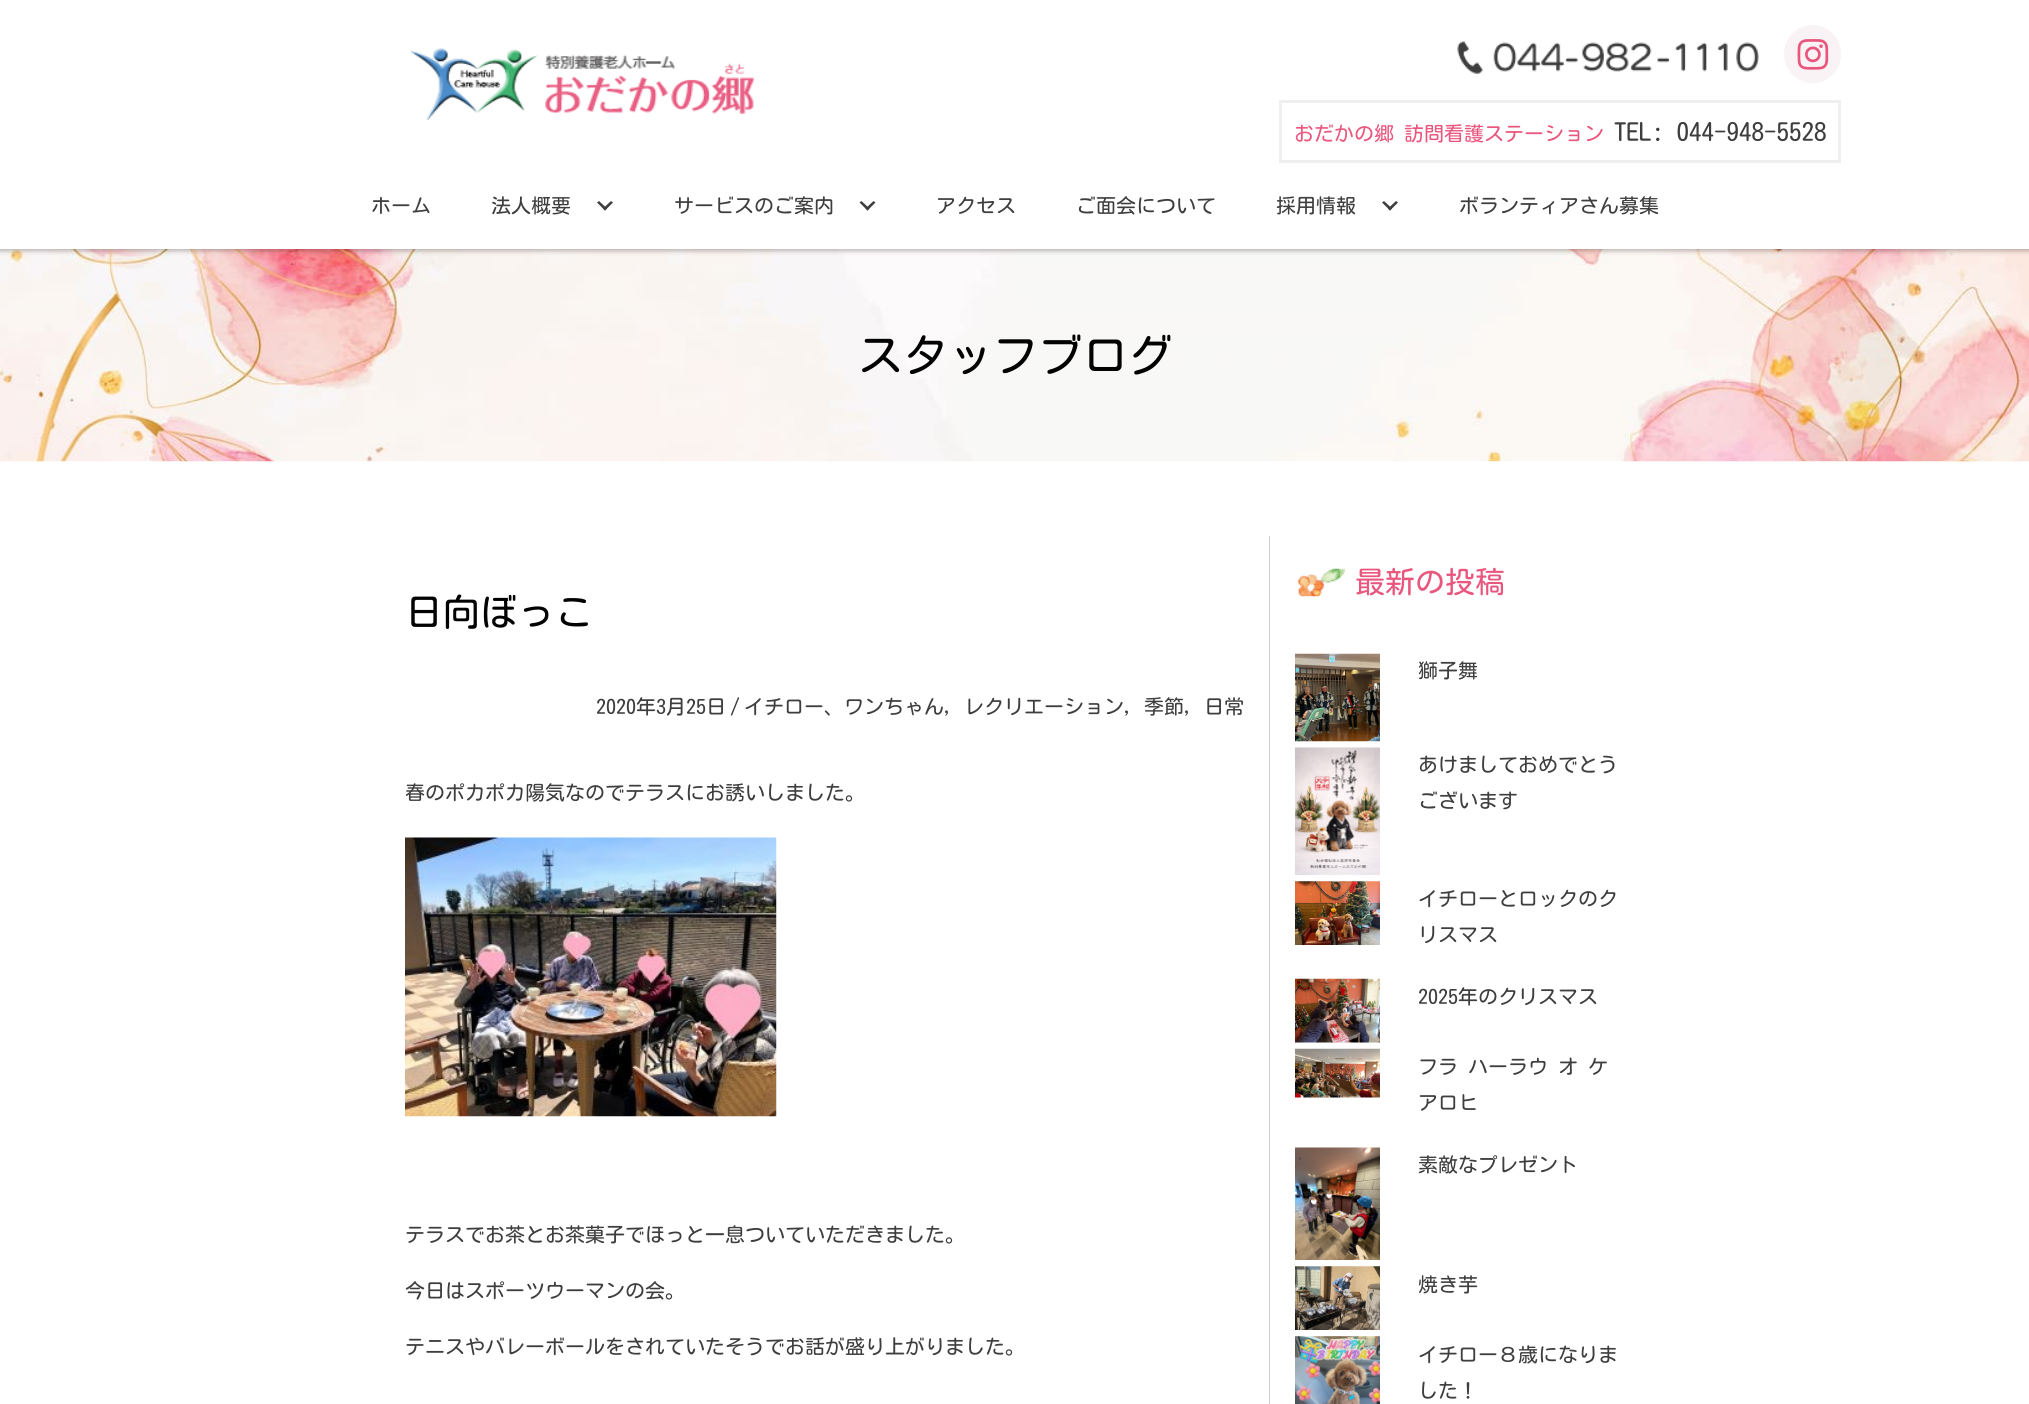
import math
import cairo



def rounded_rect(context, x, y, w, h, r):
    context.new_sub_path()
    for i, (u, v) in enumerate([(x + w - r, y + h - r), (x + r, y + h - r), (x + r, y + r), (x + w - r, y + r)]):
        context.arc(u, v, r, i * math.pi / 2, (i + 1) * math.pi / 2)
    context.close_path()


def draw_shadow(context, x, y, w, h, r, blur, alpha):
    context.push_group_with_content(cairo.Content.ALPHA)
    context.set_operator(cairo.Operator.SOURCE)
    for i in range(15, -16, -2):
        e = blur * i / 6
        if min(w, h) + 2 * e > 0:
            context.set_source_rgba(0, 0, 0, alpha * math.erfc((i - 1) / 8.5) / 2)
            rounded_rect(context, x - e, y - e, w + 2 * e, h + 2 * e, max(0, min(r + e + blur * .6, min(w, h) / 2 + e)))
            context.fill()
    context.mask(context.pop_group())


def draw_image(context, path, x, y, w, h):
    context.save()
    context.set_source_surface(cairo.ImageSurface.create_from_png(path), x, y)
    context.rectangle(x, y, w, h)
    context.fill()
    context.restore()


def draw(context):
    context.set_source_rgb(1, 1, 1)
    context.paint()
    draw_image(context, "images/4.png", 0, 249, 2029, 213)
    context.set_source_rgb(25 / 255, 0, 0)
    draw_shadow(context, -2, -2, 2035, 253, 0, 2.5, 0.29)
    context.set_source_rgb(1, 1, 1)
    context.rectangle(0, 0, 2029, 249)
    context.fill()
    draw_image(context, "images/1.png", 410, 48, 345, 73)
    draw_image(context, "images/2.png", 1457, 41, 302, 33)
    context.set_source_rgb(249 / 255, 243 / 255, 245 / 255)
    rounded_rect(context, 1784, 25, 57, 58, 28.5)
    context.fill()
    draw_image(context, "images/3.png", 1797, 39, 32, 31)
    context.rectangle(1280.5, 101.5, 559, 60)
    context.set_source_rgb(239 / 255, 239 / 255, 239 / 255)
    context.set_line_width(3)
    context.stroke()
    context.set_source_rgb(62 / 255, 62 / 255, 62 / 255)
    context.new_path()
    context.move_to(611, 201)
    context.line_to(613, 202.5)
    context.line_to(605, 210.5)
    context.line_to(603, 208.5)
    context.close_path()
    context.fill()
    context.new_path()
    context.move_to(599, 201)
    context.line_to(607, 208.5)
    context.line_to(605, 210.5)
    context.line_to(597, 202.5)
    context.close_path()
    context.fill()
    context.new_path()
    context.move_to(873.5, 201)
    context.line_to(875.5, 202.5)
    context.line_to(867.5, 210.5)
    context.line_to(865.5, 208.5)
    context.close_path()
    context.fill()
    context.new_path()
    context.move_to(861.5, 201)
    context.line_to(869.5, 208.5)
    context.line_to(867.5, 210.5)
    context.line_to(859.5, 202.5)
    context.close_path()
    context.fill()
    context.new_path()
    context.move_to(1396, 201)
    context.line_to(1398, 202.5)
    context.line_to(1390, 210.5)
    context.line_to(1388, 208.5)
    context.close_path()
    context.fill()
    context.new_path()
    context.move_to(1384, 201)
    context.line_to(1392, 208.5)
    context.line_to(1390, 210.5)
    context.line_to(1382, 202.5)
    context.close_path()
    context.fill()
    draw_image(context, "images/5.png", 405, 837, 372, 280)
    context.set_source_rgb(204 / 255, 204 / 255, 204 / 255)
    context.rectangle(1269, 536, 1, 868)
    context.fill()
    draw_image(context, "images/6.png", 1297, 568, 48, 29)
    draw_image(context, "images/7.png", 1295, 653, 85, 89)
    draw_image(context, "images/8.png", 1295, 747, 85, 128)
    draw_image(context, "images/9.png", 1295, 881, 85, 64)
    draw_image(context, "images/10.png", 1295, 978, 85, 65)
    draw_image(context, "images/11.png", 1295, 1048, 85, 50)
    draw_image(context, "images/12.png", 1295, 1147, 85, 113)
    draw_image(context, "images/13.png", 1295, 1266, 85, 64)
    draw_image(context, "images/14.png", 1295, 1336, 85, 68)
    context.select_font_face("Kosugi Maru")
    context.set_font_size(20)
    context.set_source_rgb(233 / 255, 87 / 255, 126 / 255)
    context.move_to(1294, 141)
    context.show_text("おだかの郷 訪問看護ステーション")
    context.set_font_size(25)
    context.set_source_rgb(62 / 255, 62 / 255, 62 / 255)
    context.move_to(1614, 141)
    context.show_text("TEL: 044-948-5528")
    context.set_font_size(20)
    context.move_to(371, 213)
    context.show_text("ホーム")
    context.move_to(491, 213)
    context.show_text("法人概要")
    context.move_to(674, 213)
    context.show_text("サービスのご案内")
    context.move_to(936, 213)
    context.show_text("アクセス")
    context.move_to(1076, 213)
    context.show_text("ご面会について")
    context.move_to(1276, 213)
    context.show_text("採用情報")
    context.move_to(1459, 213)
    context.show_text("ボランティアさん募集")
    context.set_font_size(45)
    context.set_source_rgb(2 / 255, 2 / 255, 2 / 255)
    context.move_to(858, 372)
    context.show_text("スタッフブログ")
    context.set_font_size(37.5)
    context.move_to(405, 626)
    context.show_text("日向ぼっこ")
    context.set_font_size(20)
    context.set_source_rgb(62 / 255, 62 / 255, 62 / 255)
    context.move_to(596, 714)
    context.show_text("2020年3月25日")
    context.move_to(730, 714)
    context.show_text("/")
    context.move_to(744, 714)
    context.show_text("イチロー、ワンちゃん, レクリエーション, 季節, 日常")
    context.move_to(405, 800)
    context.show_text("春のポカポカ陽気なのでテラスにお誘いしました。")
    context.move_to(405, 1242)
    context.show_text("テラスでお茶とお茶菓子でほっと一息ついていただきました。")
    context.move_to(405, 1298)
    context.show_text("今日はスポーツウーマンの会。")
    context.move_to(405, 1354)
    context.show_text("テニスやバレーボールをされていたそうでお話が盛り上がりました。")
    context.set_font_size(30)
    context.set_source_rgb(233 / 255, 87 / 255, 126 / 255)
    context.move_to(1355, 593)
    context.show_text("最新の投稿")
    context.set_font_size(20)
    context.set_source_rgb(62 / 255, 62 / 255, 62 / 255)
    context.move_to(1418, 678)
    context.show_text("獅子舞")
    context.move_to(1418, 772)
    context.show_text("あけましておめでとう")
    context.move_to(1418, 808)
    context.show_text("ございます")
    context.move_to(1418, 906)
    context.show_text("イチローとロックのク")
    context.move_to(1418, 942)
    context.show_text("リスマス")
    context.move_to(1418, 1004)
    context.show_text("2025年のクリスマス")
    context.move_to(1418, 1074)
    context.show_text("フラ ハーラウ オ ケ")
    context.move_to(1418, 1110)
    context.show_text("アロヒ")
    context.move_to(1418, 1172)
    context.show_text("素敵なプレゼント")
    context.move_to(1418, 1292)
    context.show_text("焼き芋")
    context.move_to(1418, 1362)
    context.show_text("イチロー８歳になりま")
    context.move_to(1418, 1398)
    context.show_text("した！")


surface = cairo.ImageSurface(cairo.Format.RGB24, 2029, 1404)
context = cairo.Context(surface)
options = cairo.FontOptions()
options.set_hint_metrics(cairo.HintMetrics.OFF)
options.set_hint_style(cairo.HintStyle.NONE)
context.set_font_options(options)
context.set_miter_limit(4)
draw(context)
surface.write_to_png("out.png")
